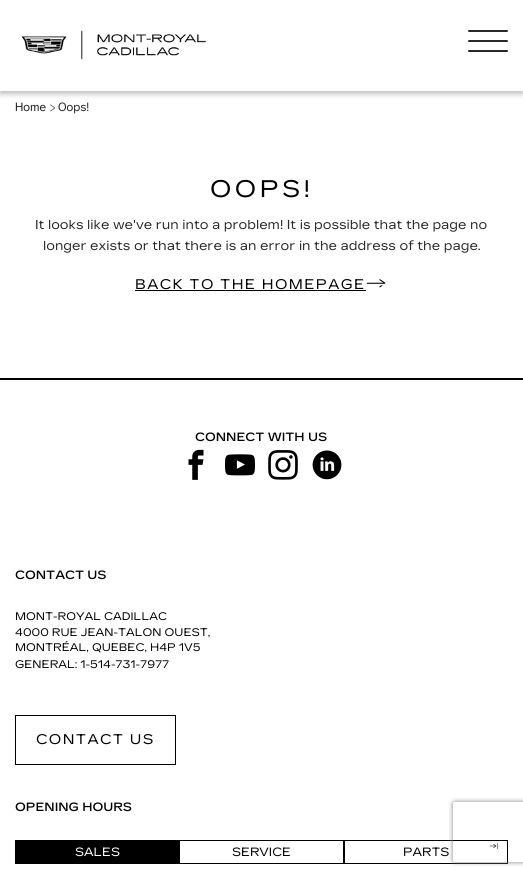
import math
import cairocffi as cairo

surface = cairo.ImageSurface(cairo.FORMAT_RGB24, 523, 876)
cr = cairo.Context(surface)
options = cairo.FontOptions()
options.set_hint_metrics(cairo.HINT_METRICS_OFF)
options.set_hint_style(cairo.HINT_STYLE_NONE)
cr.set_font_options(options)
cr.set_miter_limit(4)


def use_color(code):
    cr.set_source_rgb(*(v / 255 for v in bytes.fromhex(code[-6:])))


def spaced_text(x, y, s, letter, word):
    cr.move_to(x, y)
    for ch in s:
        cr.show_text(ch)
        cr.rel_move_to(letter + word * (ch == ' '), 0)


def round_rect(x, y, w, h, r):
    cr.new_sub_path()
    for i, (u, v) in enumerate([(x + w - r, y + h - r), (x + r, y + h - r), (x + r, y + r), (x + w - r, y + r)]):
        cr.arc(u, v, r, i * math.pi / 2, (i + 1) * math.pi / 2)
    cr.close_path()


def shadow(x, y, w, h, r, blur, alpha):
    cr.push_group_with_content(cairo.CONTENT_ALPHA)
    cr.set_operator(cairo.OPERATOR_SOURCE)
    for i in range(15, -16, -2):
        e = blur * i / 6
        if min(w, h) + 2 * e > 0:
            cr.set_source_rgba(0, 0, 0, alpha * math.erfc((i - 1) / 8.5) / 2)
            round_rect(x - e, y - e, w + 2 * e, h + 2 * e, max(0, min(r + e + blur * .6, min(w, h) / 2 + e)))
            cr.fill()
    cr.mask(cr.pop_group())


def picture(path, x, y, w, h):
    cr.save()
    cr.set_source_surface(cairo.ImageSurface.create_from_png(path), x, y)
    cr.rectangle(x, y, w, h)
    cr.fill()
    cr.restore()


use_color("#ffffff")
cr.paint()
use_color("#000000")
shadow(0, 3, 523, 91, 0, 3, 0.15)
shadow(0, 3, 523, 90, 0, 3, 0.15)
use_color("#ffffff")
cr.rectangle(0, 0, 523, 91)
cr.fill()
picture("img1.png", 21, 30, 185, 30)
use_color("#282828")
round_rect(468, 30, 40, 2, 1)
cr.fill()
round_rect(468, 40, 40, 2, 1)
cr.fill()
round_rect(468, 50, 40, 2, 1)
cr.fill()
cr.select_font_face("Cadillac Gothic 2")
cr.set_font_size(12)
cr.move_to(15, 111)
cr.show_text("Home")
picture("img2.png", 50, 104, 5, 8)
cr.move_to(58, 111)
cr.show_text("Oops!")
cr.select_font_face("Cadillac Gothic")
cr.set_font_size(24)
use_color("#000000")
spaced_text(210, 197, "OOPS!", 3.5, 0)
cr.set_font_size(13)
use_color("#282828")
cr.move_to(35, 229)
cr.show_text("It looks like we've run into a problem! It is possible that the page no")
cr.move_to(43, 250)
cr.show_text("longer exists or that there is an error in the address of the page.")
cr.set_font_size(14)
use_color("#000000")
spaced_text(135, 289, "BACK TO THE HOMEPAGE", 1.4, 0)
cr.rectangle(135, 290, 231, 1)
cr.fill()
picture("img3.png", 366, 279, 20, 9)
cr.rectangle(0, 378, 523, 2)
cr.fill()
cr.select_font_face("Cadillac Gothic Medium")
cr.set_font_size(12)
cr.move_to(195, 441)
cr.show_text("CONNECT WITH US")
picture("img4.png", 188, 449, 16, 31)
picture("img5.png", 225, 454, 30, 22)
picture("img6.png", 268, 450, 30, 30)
picture("img7.png", 312, 450, 30, 30)
cr.move_to(15, 579)
cr.show_text("CONTACT US")
cr.select_font_face("Cadillac Gothic")
cr.set_font_size(11)
cr.move_to(15, 620)
cr.show_text("MONT-ROYAL CADILLAC")
cr.move_to(15, 636)
cr.show_text("4000 RUE JEAN-TALON OUEST,")
cr.move_to(15, 651)
cr.show_text("MONTRÉAL, QUEBEC, H4P 1V5")
cr.move_to(15, 668)
cr.show_text("GENERAL: 1-514-731-7977")
cr.rectangle(15.5, 715.5, 160, 49)
cr.set_line_width(1)
cr.stroke()
cr.set_font_size(14)
spaced_text(36, 744, "CONTACT US", 1.4, 0)
cr.select_font_face("Cadillac Gothic Medium")
cr.set_font_size(12)
cr.move_to(15, 811)
cr.show_text("OPENING HOURS")
cr.rectangle(15, 840, 164, 24)
cr.fill()
cr.select_font_face("Cadillac Gothic")
use_color("#ffffff")
cr.move_to(75, 856)
cr.show_text("SALES")
cr.rectangle(179.5, 840.5, 164, 23)
use_color("#000000")
cr.stroke()
cr.move_to(232, 856)
cr.show_text("SERVICE")
cr.rectangle(344.5, 840.5, 163, 23)
cr.stroke()
cr.move_to(403, 856)
cr.show_text("PARTS")
cr.save()
cr.set_fill_rule(cairo.FILL_RULE_EVEN_ODD)
cr.new_path()
cr.move_to(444, 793)
cr.line_to(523, 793)
cr.line_to(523, 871)
cr.line_to(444, 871)
cr.close_path()
cr.move_to(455, 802)
cr.line_to(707, 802)
cr.curve_to(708, 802, 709, 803, 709, 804)
cr.line_to(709, 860)
cr.curve_to(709, 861, 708, 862, 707, 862)
cr.line_to(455, 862)
cr.curve_to(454, 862, 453, 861, 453, 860)
cr.line_to(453, 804)
cr.curve_to(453, 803, 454, 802, 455, 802)
cr.close_path()
cr.clip()
use_color("#808080")
shadow(453, 802, 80, 60, 2, 2.5, 1)
cr.restore()
picture("img8.png", 489, 843, 10, 6)
surface.write_to_png("result.png")
